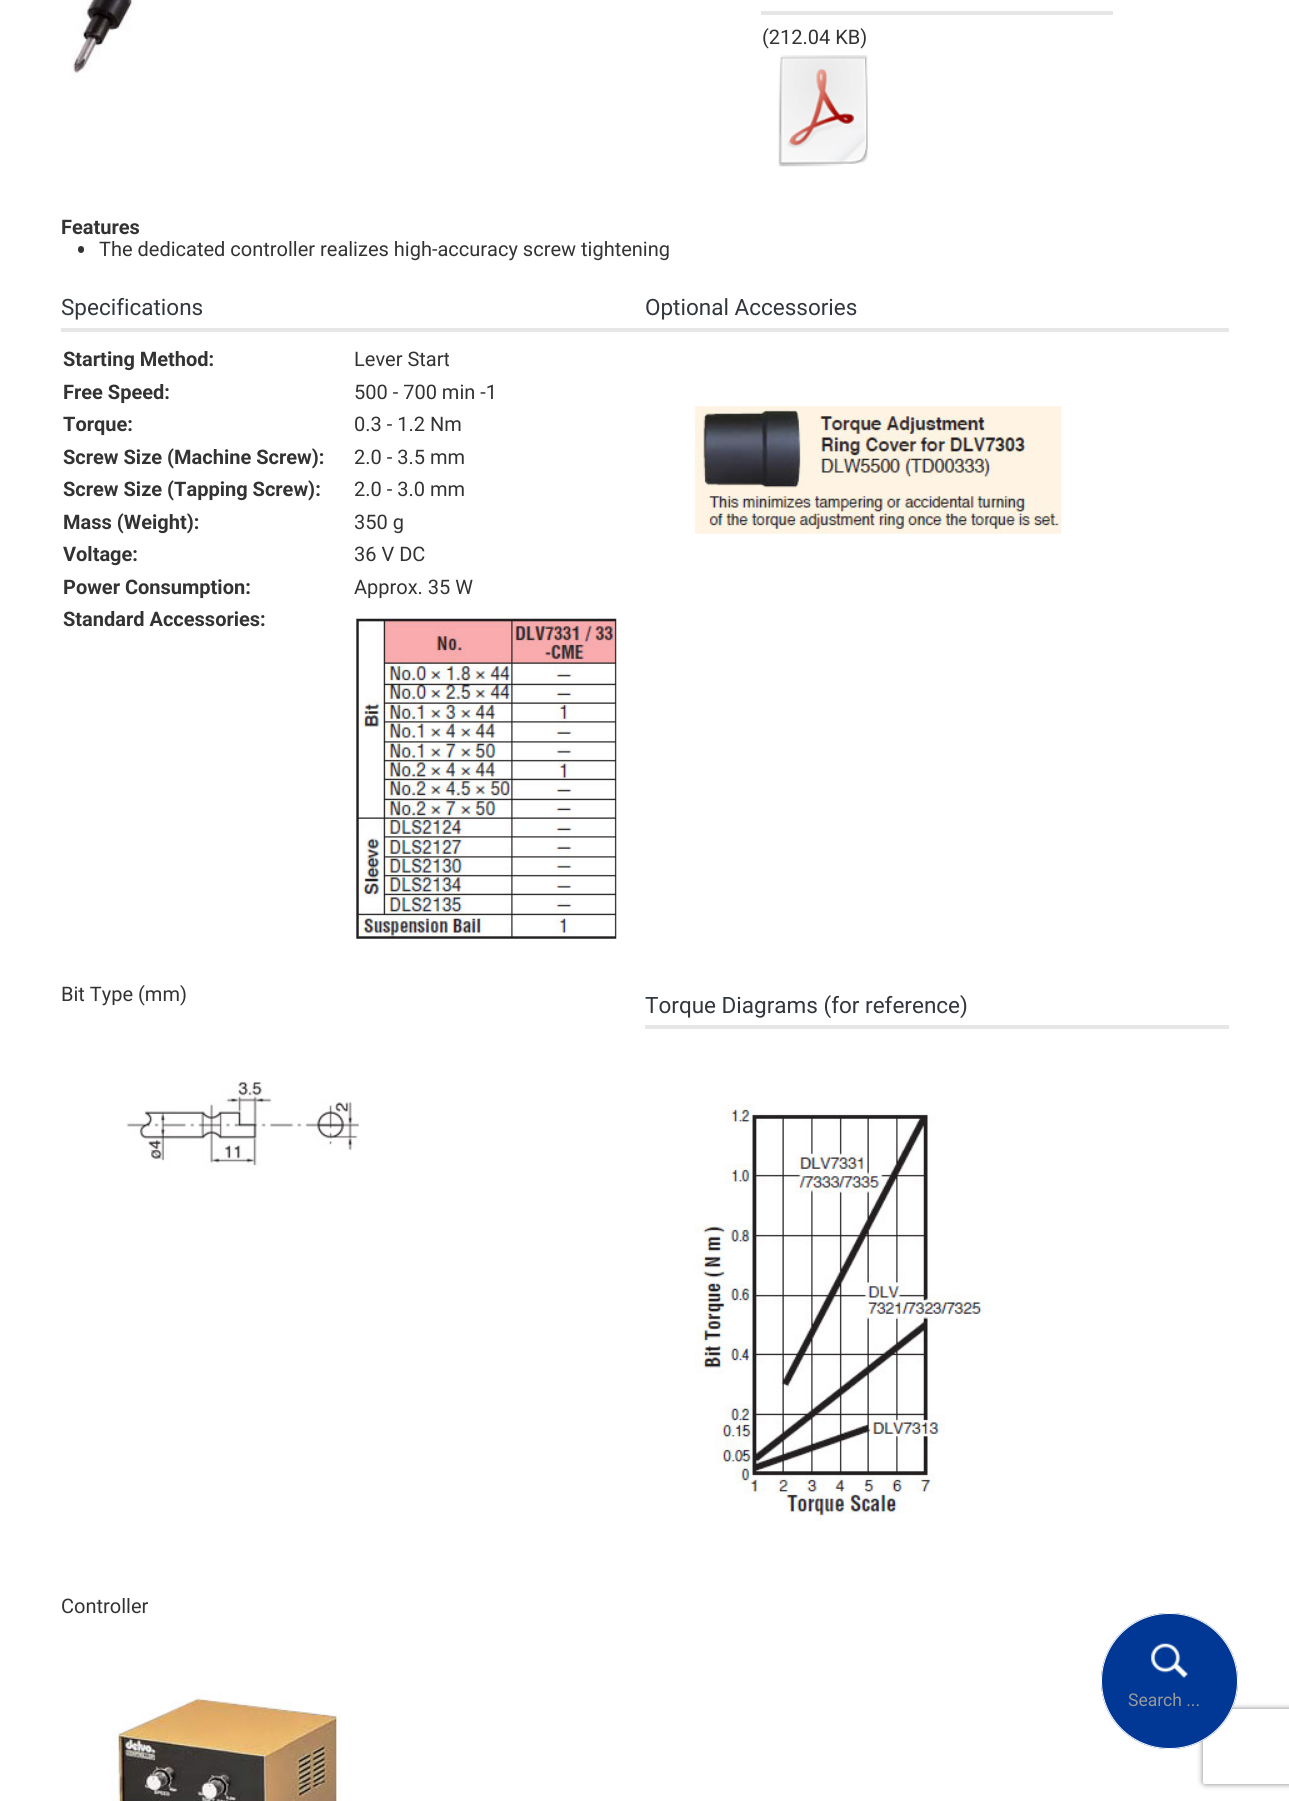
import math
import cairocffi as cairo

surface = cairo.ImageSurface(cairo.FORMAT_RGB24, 1289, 1801)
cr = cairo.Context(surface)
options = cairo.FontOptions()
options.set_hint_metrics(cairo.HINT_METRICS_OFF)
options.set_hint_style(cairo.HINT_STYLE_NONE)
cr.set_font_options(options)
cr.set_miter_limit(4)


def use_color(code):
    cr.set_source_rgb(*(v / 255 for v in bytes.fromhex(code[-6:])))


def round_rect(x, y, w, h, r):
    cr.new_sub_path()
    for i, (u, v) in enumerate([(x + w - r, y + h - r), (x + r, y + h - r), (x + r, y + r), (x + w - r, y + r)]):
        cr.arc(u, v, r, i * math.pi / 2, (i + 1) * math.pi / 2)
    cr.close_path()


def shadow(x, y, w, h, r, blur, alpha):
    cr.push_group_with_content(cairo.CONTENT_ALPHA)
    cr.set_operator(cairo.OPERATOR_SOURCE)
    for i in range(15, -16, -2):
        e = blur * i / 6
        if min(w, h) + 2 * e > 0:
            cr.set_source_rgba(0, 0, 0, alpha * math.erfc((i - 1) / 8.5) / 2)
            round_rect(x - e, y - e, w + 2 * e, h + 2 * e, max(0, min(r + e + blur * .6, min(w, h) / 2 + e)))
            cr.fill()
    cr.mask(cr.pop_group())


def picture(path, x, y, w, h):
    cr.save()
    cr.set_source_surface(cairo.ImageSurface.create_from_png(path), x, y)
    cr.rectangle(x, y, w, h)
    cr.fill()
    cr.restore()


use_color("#ffffff")
cr.paint()
picture("img1.png", 71, 0, 64, 79)
use_color("#e6e6e6")
cr.rectangle(761, 11, 352, 4)
cr.fill()
cr.select_font_face("Roboto")
cr.set_font_size(20)
use_color("#333333")
cr.move_to(762, 44)
cr.show_text("(212.04 KB)")
picture("img2.png", 778, 55, 90, 112)
cr.select_font_face("Roboto", cairo.FONT_SLANT_NORMAL, cairo.FONT_WEIGHT_BOLD)
cr.move_to(61, 234)
cr.show_text("Features")
round_rect(78, 246, 6, 7, 3)
cr.fill()
cr.select_font_face("Roboto")
cr.move_to(99, 256)
cr.show_text("The dedicated controller realizes high-accuracy screw tightening")
use_color("#e6e6e6")
cr.rectangle(61, 328, 1168, 4)
cr.fill()
cr.set_font_size(22.5)
use_color("#32373d")
cr.move_to(61, 315)
cr.show_text("Specifications")
cr.select_font_face("Roboto", cairo.FONT_SLANT_NORMAL, cairo.FONT_WEIGHT_BOLD)
cr.set_font_size(20)
use_color("#333333")
cr.move_to(63, 366)
cr.show_text("Starting Method:")
cr.select_font_face("Roboto")
cr.move_to(354, 366)
cr.show_text("Lever Start")
cr.select_font_face("Roboto", cairo.FONT_SLANT_NORMAL, cairo.FONT_WEIGHT_BOLD)
cr.move_to(63, 399)
cr.show_text("Free Speed:")
cr.select_font_face("Roboto")
cr.move_to(354, 399)
cr.show_text("500 - 700 min -1")
cr.select_font_face("Roboto", cairo.FONT_SLANT_NORMAL, cairo.FONT_WEIGHT_BOLD)
cr.move_to(63, 431)
cr.show_text("Torque:")
cr.select_font_face("Roboto")
cr.move_to(354, 431)
cr.show_text("0.3 - 1.2 Nm")
cr.select_font_face("Roboto", cairo.FONT_SLANT_NORMAL, cairo.FONT_WEIGHT_BOLD)
cr.move_to(63, 464)
cr.show_text("Screw Size (Machine Screw):")
cr.select_font_face("Roboto")
cr.move_to(354, 464)
cr.show_text("2.0 - 3.5 mm")
cr.select_font_face("Roboto", cairo.FONT_SLANT_NORMAL, cairo.FONT_WEIGHT_BOLD)
cr.move_to(63, 496)
cr.show_text("Screw Size (Tapping Screw):")
cr.select_font_face("Roboto")
cr.move_to(354, 496)
cr.show_text("2.0 - 3.0 mm")
cr.select_font_face("Roboto", cairo.FONT_SLANT_NORMAL, cairo.FONT_WEIGHT_BOLD)
cr.move_to(63, 529)
cr.show_text("Mass (Weight):")
cr.select_font_face("Roboto")
cr.move_to(354, 529)
cr.show_text("350 g")
cr.select_font_face("Roboto", cairo.FONT_SLANT_NORMAL, cairo.FONT_WEIGHT_BOLD)
cr.move_to(63, 561)
cr.show_text("Voltage:")
cr.select_font_face("Roboto")
cr.move_to(354, 561)
cr.show_text("36 V DC")
cr.select_font_face("Roboto", cairo.FONT_SLANT_NORMAL, cairo.FONT_WEIGHT_BOLD)
cr.move_to(63, 594)
cr.show_text("Power Consumption:")
cr.select_font_face("Roboto")
cr.move_to(354, 594)
cr.show_text("Approx. 35 W")
cr.select_font_face("Roboto", cairo.FONT_SLANT_NORMAL, cairo.FONT_WEIGHT_BOLD)
cr.move_to(63, 626)
cr.show_text("Standard Accessories:")
picture("img3.png", 355, 617, 262, 322)
cr.select_font_face("Roboto")
cr.set_font_size(22.5)
use_color("#32373d")
cr.move_to(645, 315)
cr.show_text("Optional Accessories")
picture("img4.png", 695, 406, 367, 128)
cr.set_font_size(20)
use_color("#333333")
cr.move_to(61, 1001)
cr.show_text("Bit Type (mm)")
picture("img5.png", 126, 1080, 234, 89)
use_color("#e6e6e6")
cr.rectangle(645, 1025, 584, 4)
cr.fill()
cr.set_font_size(22.5)
use_color("#32373d")
cr.move_to(645, 1013)
cr.show_text("Torque Diagrams (for reference)")
picture("img6.png", 695, 1104, 290, 417)
cr.set_font_size(20)
use_color("#333333")
cr.move_to(61, 1613)
cr.show_text("Controller")
picture("img7.png", 111, 1693, 230, 108)
cr.save()
cr.set_fill_rule(cairo.FILL_RULE_EVEN_ODD)
cr.new_path()
cr.move_to(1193, 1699)
cr.line_to(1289, 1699)
cr.line_to(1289, 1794)
cr.line_to(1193, 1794)
cr.close_path()
cr.move_to(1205.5, 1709)
cr.line_to(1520.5, 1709)
cr.curve_to(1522, 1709, 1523, 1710, 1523, 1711.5)
cr.line_to(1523, 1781.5)
cr.curve_to(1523, 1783, 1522, 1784, 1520.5, 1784)
cr.line_to(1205.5, 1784)
cr.curve_to(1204, 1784, 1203, 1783, 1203, 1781.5)
cr.line_to(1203, 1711.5)
cr.curve_to(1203, 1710, 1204, 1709, 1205.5, 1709)
cr.close_path()
cr.clip()
use_color("#808080")
shadow(1203, 1709, 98, 75, 2.5, 3, 1)
cr.restore()
use_color("#013895")
round_rect(1101, 1613, 137, 136, 68)
cr.fill()
picture("img8.png", 1151, 1643, 37, 35)
use_color("#01348a")
cr.new_path()
cr.move_to(1169, 1615)
cr.curve_to(1206, 1615, 1236, 1645, 1236, 1682)
cr.curve_to(1236, 1616, 1153, 1590, 1116, 1641)
cr.curve_to(1128, 1625, 1147, 1615, 1169, 1615)
cr.close_path()
cr.fill()
round_rect(1101.5, 1613.5, 136, 135, 67.5)
use_color("#ffffff")
cr.set_line_width(1)
cr.stroke()
cr.set_font_size(17.5)
use_color("#999999")
cr.move_to(1128, 1706)
cr.show_text("Search ...")
surface.write_to_png("result.png")
